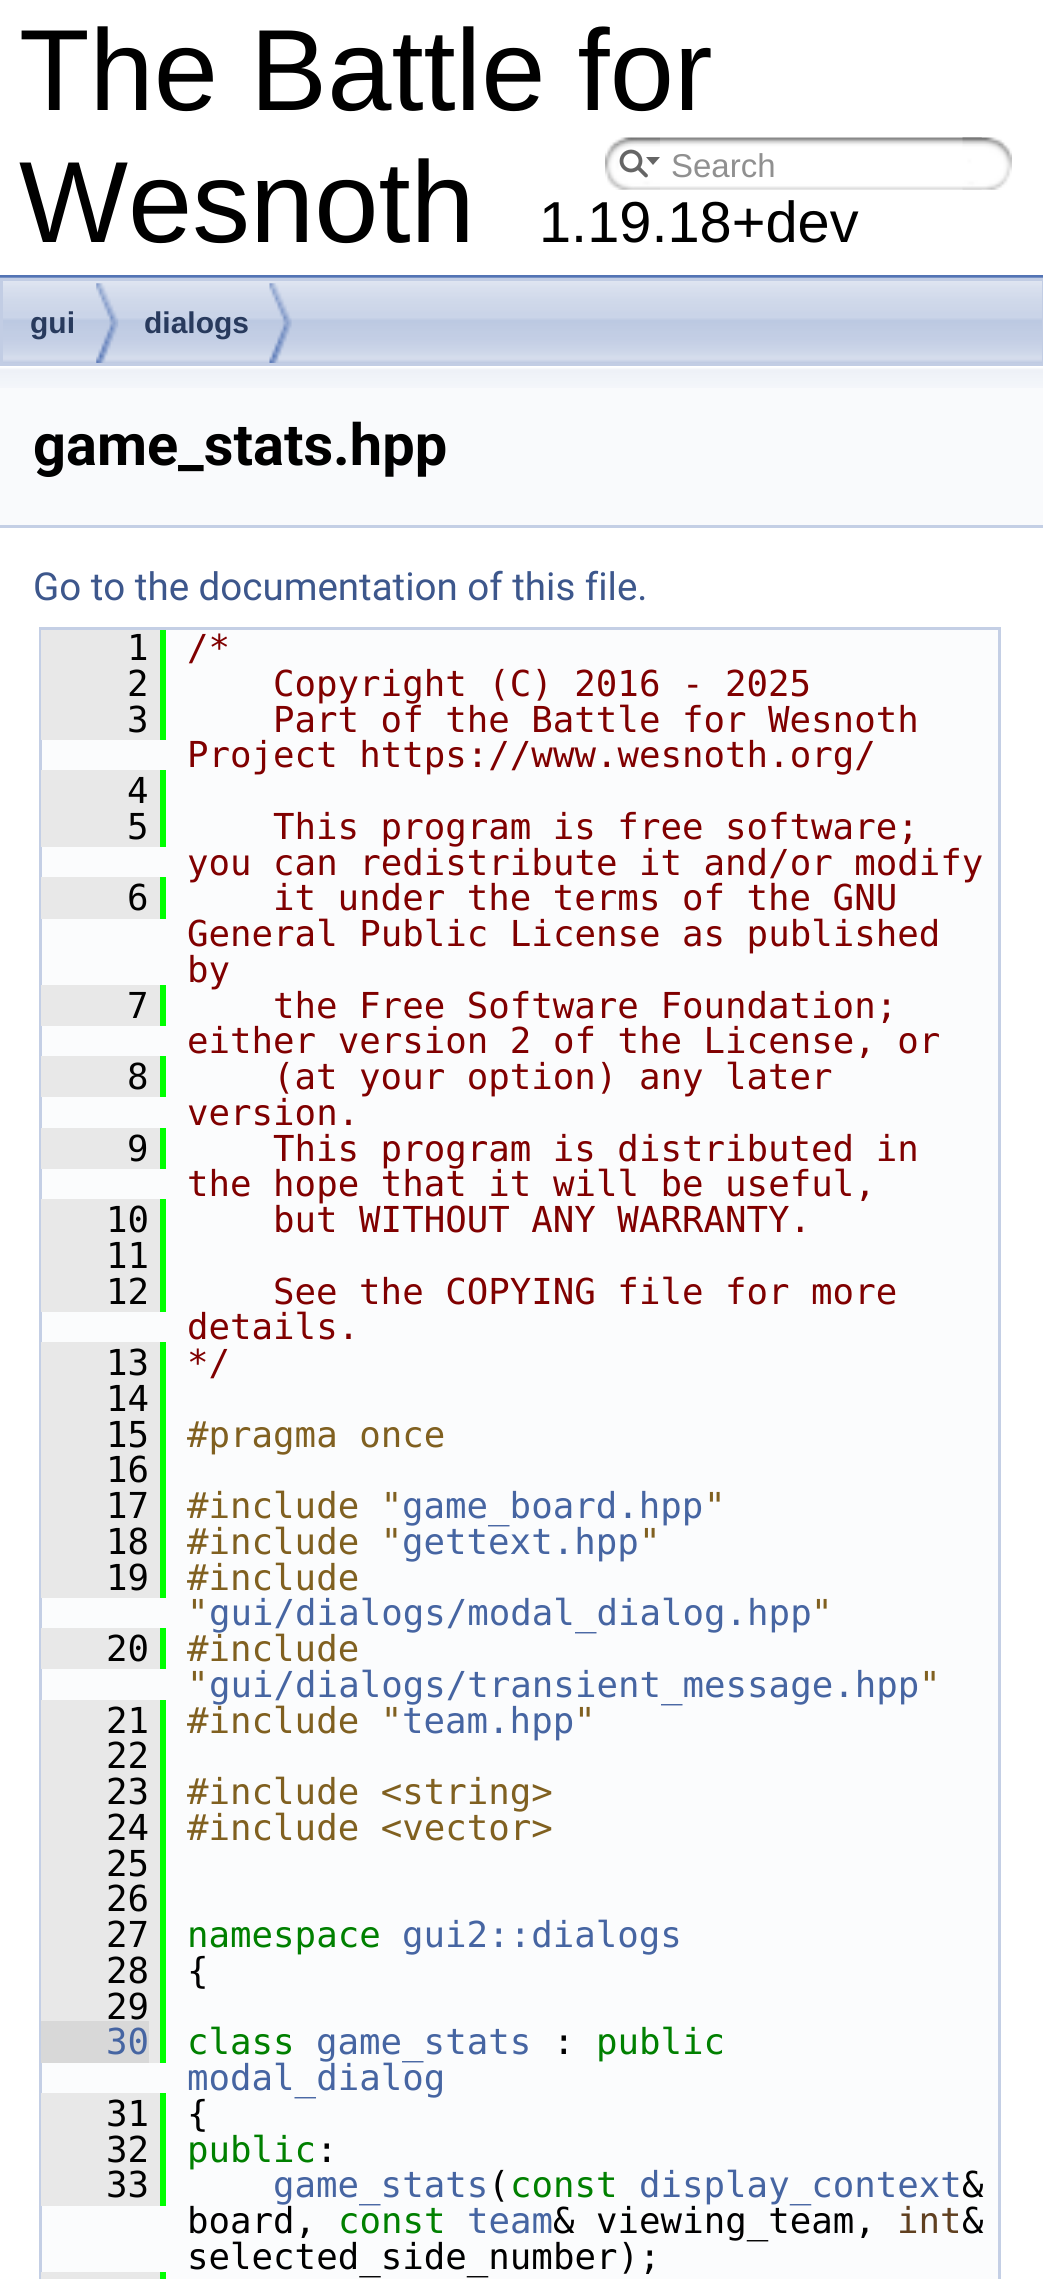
import math
import cairocffi as cairo

surface = cairo.ImageSurface(cairo.FORMAT_RGB24, 1043, 2279)
cr = cairo.Context(surface)
options = cairo.FontOptions()
options.set_hint_metrics(cairo.HINT_METRICS_OFF)
options.set_hint_style(cairo.HINT_STYLE_NONE)
cr.set_font_options(options)
cr.set_miter_limit(4)


def use_color(code):
    cr.set_source_rgb(*(v / 255 for v in bytes.fromhex(code[-6:])))


def picture(path, x, y, w, h):
    cr.save()
    cr.set_source_surface(cairo.ImageSurface.create_from_png(path), x, y)
    cr.rectangle(x, y, w, h)
    cr.fill()
    cr.restore()


use_color("#ffffff")
cr.paint()
use_color("#5373b4")
cr.rectangle(0, 275, 1043, 3)
cr.fill()
cr.select_font_face("Liberation Sans")
cr.set_font_size(115.5)
use_color("#000000")
cr.move_to(19, 110)
cr.show_text("The Battle for")
cr.move_to(19, 242)
cr.show_text("Wesnoth")
cr.set_font_size(57.75)
cr.move_to(539, 242)
cr.show_text("1.19.18+dev")
picture("img1.png", 605, 137, 55, 53)
cr.arc(631, 161, 9.5, 0, 2 * math.pi)
use_color("#656565")
cr.set_line_width(3.8)
cr.stroke()
cr.new_path()
cr.move_to(646, 157)
cr.line_to(653, 165)
cr.line_to(660, 157)
cr.close_path()
cr.fill()
cr.new_path()
cr.move_to(638.5, 168)
cr.line_to(646, 175.5)
cr.set_line_cap(cairo.LINE_CAP_ROUND)
cr.stroke()
picture("img2.png", 660, 137, 322, 53)
cr.set_font_size(33)
use_color("#909090")
cr.move_to(671, 177)
cr.show_text("Search")
picture("img3.png", 962, 137, 50, 53)
picture("img4.png", 0, 277, 1043, 86)
cr.rectangle(1.5, 279.5, 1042, 85)
use_color("#c2cde4")
cr.set_line_width(3)
cr.set_line_cap(cairo.LINE_CAP_BUTT)
cr.stroke()
picture("img5.png", 96, 283, 23, 80)
cr.select_font_face("Liberation Sans", cairo.FONT_SLANT_NORMAL, cairo.FONT_WEIGHT_BOLD)
cr.set_font_size(30)
use_color("#283a5d")
cr.move_to(30, 333)
cr.show_text("gui")
picture("img6.png", 269, 283, 23, 80)
cr.move_to(144, 333)
cr.show_text("dialogs")
use_color("#f9fafc")
cr.rectangle(0, 388, 1043, 137)
cr.fill()
picture("img7.png", 0, 366, 1043, 22)
use_color("#c4cfe5")
cr.rectangle(0, 525, 1043, 3)
cr.fill()
cr.select_font_face("Roboto", cairo.FONT_SLANT_NORMAL, cairo.FONT_WEIGHT_BOLD)
cr.set_font_size(57.75)
use_color("#000000")
cr.move_to(33, 465)
cr.show_text("game_stats.hpp")
cr.select_font_face("Roboto")
cr.set_font_size(38.5)
use_color("#3d578c")
cr.move_to(33, 600)
cr.show_text("Go to the documentation of this file.")
use_color("#fbfcfd")
cr.rectangle(40.5, 628.5, 959, 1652)
cr.fill_preserve()
use_color("#c4cfe5")
cr.stroke()
use_color("#e8e8e8")
cr.rectangle(41, 630, 119, 110)
cr.fill()
cr.select_font_face("DejaVu Sans Mono")
cr.set_font_size(35.75)
use_color("#000000")
cr.move_to(127, 660)
cr.show_text("1")
use_color("#00ff00")
cr.rectangle(160, 630, 6, 110)
cr.fill()
use_color("#800000")
cr.move_to(187, 660)
cr.show_text("/*")
use_color("#000000")
cr.move_to(127, 696)
cr.show_text("2")
use_color("#800000")
cr.move_to(273, 696)
cr.show_text("Copyright (C) 2016 - 2025")
use_color("#000000")
cr.move_to(127, 732)
cr.show_text("3")
use_color("#800000")
cr.move_to(273, 732)
cr.show_text("Part of the Battle for Wesnoth")
cr.move_to(187, 767)
cr.show_text("Project https://www.wesnoth.org/")
use_color("#e8e8e8")
cr.rectangle(41, 770, 119, 77)
cr.fill()
use_color("#000000")
cr.move_to(127, 803)
cr.show_text("4")
use_color("#00ff00")
cr.rectangle(160, 770, 6, 77)
cr.fill()
use_color("#000000")
cr.move_to(127, 839)
cr.show_text("5")
use_color("#800000")
cr.move_to(273, 839)
cr.show_text("This program is free software;")
cr.move_to(187, 875)
cr.show_text("you can redistribute it and/or modify")
use_color("#e8e8e8")
cr.rectangle(41, 877, 119, 42)
cr.fill()
use_color("#000000")
cr.move_to(127, 910)
cr.show_text("6")
use_color("#00ff00")
cr.rectangle(160, 877, 6, 42)
cr.fill()
use_color("#800000")
cr.move_to(273, 910)
cr.show_text("it under the terms of the GNU")
cr.move_to(187, 946)
cr.show_text("General Public License as published")
cr.move_to(187, 982)
cr.show_text("by")
use_color("#e8e8e8")
cr.rectangle(41, 985, 119, 41)
cr.fill()
use_color("#000000")
cr.move_to(127, 1018)
cr.show_text("7")
use_color("#00ff00")
cr.rectangle(160, 985, 6, 41)
cr.fill()
use_color("#800000")
cr.move_to(273, 1018)
cr.show_text("the Free Software Foundation;")
cr.move_to(187, 1053)
cr.show_text("either version 2 of the License, or")
use_color("#e8e8e8")
cr.rectangle(41, 1056, 119, 41)
cr.fill()
use_color("#000000")
cr.move_to(127, 1089)
cr.show_text("8")
use_color("#00ff00")
cr.rectangle(160, 1056, 6, 41)
cr.fill()
use_color("#800000")
cr.move_to(273, 1089)
cr.show_text("(at your option) any later")
cr.move_to(187, 1125)
cr.show_text("version.")
use_color("#e8e8e8")
cr.rectangle(41, 1128, 119, 41)
cr.fill()
use_color("#000000")
cr.move_to(127, 1161)
cr.show_text("9")
use_color("#00ff00")
cr.rectangle(160, 1128, 6, 41)
cr.fill()
use_color("#800000")
cr.move_to(273, 1161)
cr.show_text("This program is distributed in")
cr.move_to(187, 1196)
cr.show_text("the hope that it will be useful,")
use_color("#e8e8e8")
cr.rectangle(41, 1199, 119, 113)
cr.fill()
use_color("#000000")
cr.move_to(106, 1232)
cr.show_text("10")
use_color("#00ff00")
cr.rectangle(160, 1199, 6, 113)
cr.fill()
use_color("#800000")
cr.move_to(273, 1232)
cr.show_text("but WITHOUT ANY WARRANTY.")
use_color("#000000")
cr.move_to(106, 1268)
cr.show_text("11")
cr.move_to(106, 1304)
cr.show_text("12")
use_color("#800000")
cr.move_to(273, 1304)
cr.show_text("See the COPYING file for more")
cr.move_to(187, 1339)
cr.show_text("details.")
use_color("#e8e8e8")
cr.rectangle(41, 1342, 119, 256)
cr.fill()
use_color("#000000")
cr.move_to(106, 1375)
cr.show_text("13")
use_color("#00ff00")
cr.rectangle(160, 1342, 6, 256)
cr.fill()
use_color("#800000")
cr.move_to(187, 1375)
cr.show_text("*/")
use_color("#000000")
cr.move_to(106, 1411)
cr.show_text("14")
cr.move_to(106, 1447)
cr.show_text("15")
use_color("#806020")
cr.move_to(187, 1447)
cr.show_text("#pragma once")
use_color("#000000")
cr.move_to(106, 1482)
cr.show_text("16")
cr.move_to(106, 1518)
cr.show_text("17")
use_color("#806020")
cr.move_to(187, 1518)
cr.show_text("#include \"")
use_color("#4665a2")
cr.move_to(402, 1518)
cr.show_text("game_board.hpp")
use_color("#806020")
cr.move_to(704, 1518)
cr.show_text("\"")
use_color("#000000")
cr.move_to(106, 1554)
cr.show_text("18")
use_color("#806020")
cr.move_to(187, 1554)
cr.show_text("#include \"")
use_color("#4665a2")
cr.move_to(402, 1554)
cr.show_text("gettext.hpp")
use_color("#806020")
cr.move_to(639, 1554)
cr.show_text("\"")
use_color("#000000")
cr.move_to(106, 1590)
cr.show_text("19")
use_color("#806020")
cr.move_to(187, 1590)
cr.show_text("#include")
cr.move_to(187, 1625)
cr.show_text("\"")
use_color("#4665a2")
cr.move_to(209, 1625)
cr.show_text("gui/dialogs/modal_dialog.hpp")
use_color("#806020")
cr.move_to(811, 1625)
cr.show_text("\"")
use_color("#e8e8e8")
cr.rectangle(41, 1628, 119, 41)
cr.fill()
use_color("#000000")
cr.move_to(106, 1661)
cr.show_text("20")
use_color("#00ff00")
cr.rectangle(160, 1628, 6, 41)
cr.fill()
use_color("#806020")
cr.move_to(187, 1661)
cr.show_text("#include")
cr.move_to(187, 1697)
cr.show_text("\"")
use_color("#4665a2")
cr.move_to(209, 1697)
cr.show_text("gui/dialogs/transient_message.hpp")
use_color("#806020")
cr.move_to(919, 1697)
cr.show_text("\"")
use_color("#e8e8e8")
cr.rectangle(41, 1700, 119, 321)
cr.fill()
use_color("#000000")
cr.move_to(106, 1733)
cr.show_text("21")
use_color("#00ff00")
cr.rectangle(160, 1700, 6, 363)
cr.fill()
use_color("#806020")
cr.move_to(187, 1733)
cr.show_text("#include \"")
use_color("#4665a2")
cr.move_to(402, 1733)
cr.show_text("team.hpp")
use_color("#806020")
cr.move_to(574, 1733)
cr.show_text("\"")
use_color("#000000")
cr.move_to(106, 1768)
cr.show_text("22")
cr.move_to(106, 1804)
cr.show_text("23")
use_color("#806020")
cr.move_to(187, 1804)
cr.show_text("#include <string>")
use_color("#000000")
cr.move_to(106, 1840)
cr.show_text("24")
use_color("#806020")
cr.move_to(187, 1840)
cr.show_text("#include <vector>")
use_color("#000000")
cr.move_to(106, 1876)
cr.show_text("25")
cr.move_to(106, 1911)
cr.show_text("26")
cr.move_to(106, 1947)
cr.show_text("27")
use_color("#008000")
cr.move_to(187, 1947)
cr.show_text("namespace")
use_color("#4665a2")
cr.move_to(402, 1947)
cr.show_text("gui2::dialogs")
use_color("#000000")
cr.move_to(106, 1983)
cr.show_text("28")
cr.move_to(187, 1983)
cr.show_text("{")
cr.move_to(106, 2019)
cr.show_text("29")
use_color("#d8d8d8")
cr.rectangle(41, 2021, 108, 42)
cr.fill()
use_color("#4665a2")
cr.move_to(106, 2054)
cr.show_text("30")
use_color("#e8e8e8")
cr.rectangle(149, 2021, 11, 42)
cr.fill()
use_color("#008000")
cr.move_to(187, 2054)
cr.show_text("class")
use_color("#4665a2")
cr.move_to(316, 2054)
cr.show_text("game_stats")
use_color("#000000")
cr.move_to(553, 2054)
cr.show_text(":")
use_color("#008000")
cr.move_to(596, 2054)
cr.show_text("public")
use_color("#4665a2")
cr.move_to(187, 2090)
cr.show_text("modal_dialog")
use_color("#e8e8e8")
cr.rectangle(41, 2093, 119, 113)
cr.fill()
use_color("#000000")
cr.move_to(106, 2126)
cr.show_text("31")
use_color("#00ff00")
cr.rectangle(160, 2093, 6, 113)
cr.fill()
use_color("#000000")
cr.move_to(187, 2126)
cr.show_text("{")
cr.move_to(106, 2162)
cr.show_text("32")
use_color("#008000")
cr.move_to(187, 2162)
cr.show_text("public")
use_color("#000000")
cr.move_to(316, 2162)
cr.show_text(":")
use_color("#e8e8e8")
cr.rectangle(41, 2272, 124, 7)
cr.fill()
use_color("#00ff00")
cr.rectangle(160, 2272, 6, 7)
cr.fill()
use_color("#000000")
cr.move_to(106, 2197)
cr.show_text("33")
use_color("#4665a2")
cr.move_to(273, 2197)
cr.show_text("game_stats")
use_color("#000000")
cr.move_to(488, 2197)
cr.show_text("(")
use_color("#008000")
cr.move_to(510, 2197)
cr.show_text("const")
use_color("#4665a2")
cr.move_to(639, 2197)
cr.show_text("display_context")
use_color("#000000")
cr.move_to(962, 2197)
cr.show_text("&")
cr.move_to(187, 2233)
cr.show_text("board,")
use_color("#008000")
cr.move_to(338, 2233)
cr.show_text("const")
use_color("#4665a2")
cr.move_to(467, 2233)
cr.show_text("team")
use_color("#000000")
cr.move_to(553, 2233)
cr.show_text("& viewing_team,")
use_color("#604020")
cr.move_to(897, 2233)
cr.show_text("int")
use_color("#000000")
cr.move_to(962, 2233)
cr.show_text("&")
cr.move_to(187, 2269)
cr.show_text("selected_side_number);")
surface.write_to_png("result.png")
